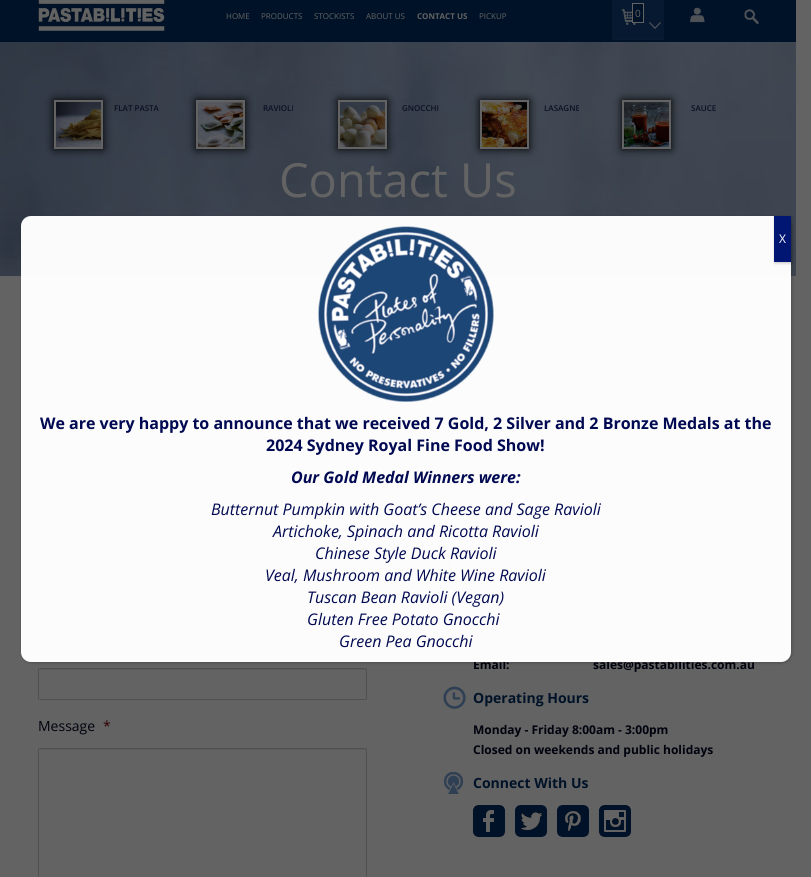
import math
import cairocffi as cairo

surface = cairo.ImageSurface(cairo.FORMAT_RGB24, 811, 877)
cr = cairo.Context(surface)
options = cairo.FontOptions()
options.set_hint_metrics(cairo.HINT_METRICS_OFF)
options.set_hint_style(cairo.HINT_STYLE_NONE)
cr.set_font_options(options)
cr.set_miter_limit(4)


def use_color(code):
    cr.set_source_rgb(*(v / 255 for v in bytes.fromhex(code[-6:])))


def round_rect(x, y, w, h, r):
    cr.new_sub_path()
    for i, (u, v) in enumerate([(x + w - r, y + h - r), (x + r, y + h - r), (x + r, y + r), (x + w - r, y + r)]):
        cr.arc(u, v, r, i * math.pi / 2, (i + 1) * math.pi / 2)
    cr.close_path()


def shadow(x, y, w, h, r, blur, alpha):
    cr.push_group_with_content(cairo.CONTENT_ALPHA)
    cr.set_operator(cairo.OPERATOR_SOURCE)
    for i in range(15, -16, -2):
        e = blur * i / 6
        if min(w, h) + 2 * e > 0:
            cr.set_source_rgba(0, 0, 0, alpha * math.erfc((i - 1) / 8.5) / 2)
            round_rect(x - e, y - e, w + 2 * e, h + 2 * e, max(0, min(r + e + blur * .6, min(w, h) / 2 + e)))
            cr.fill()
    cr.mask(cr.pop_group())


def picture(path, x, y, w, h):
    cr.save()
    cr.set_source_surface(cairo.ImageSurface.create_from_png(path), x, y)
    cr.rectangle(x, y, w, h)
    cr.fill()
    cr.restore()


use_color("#636363")
cr.paint()
use_color("#001227")
cr.rectangle(0, 0, 796, 42)
cr.fill()
picture("img1.png", 38, 0, 127, 31)
cr.select_font_face("Open Sans")
cr.set_font_size(8)
use_color("#636363")
cr.move_to(226, 19)
cr.show_text("HOME")
cr.move_to(261, 19)
cr.show_text("PRODUCTS")
cr.move_to(314, 19)
cr.show_text("STOCKISTS")
cr.move_to(366, 19)
cr.show_text("ABOUT US")
cr.select_font_face("Open Sans", cairo.FONT_SLANT_NORMAL, cairo.FONT_WEIGHT_BOLD)
cr.move_to(417, 19)
cr.show_text("CONTACT US")
cr.select_font_face("Open Sans")
cr.move_to(479, 19)
cr.show_text("PICKUP")
picture("img2.png", 612, 0, 52, 40)
use_color("#001227")
cr.rectangle(632.5, 3.5, 11, 19)
cr.fill_preserve()
use_color("#636363")
cr.set_line_width(1)
cr.stroke()
cr.set_font_size(10)
cr.move_to(635, 17)
cr.show_text("0")
picture("img3.png", 649, 22, 12, 7)
picture("img4.png", 690, 7, 15, 16)
picture("img5.png", 744, 9, 15, 15)
picture("img11.png", 0, 42, 796, 234)
use_color("#000000")
shadow(54, 100, 49, 49, 0, 4.5, 1)
cr.rectangle(55, 101, 47, 47)
use_color("#636363")
cr.set_line_width(2)
cr.stroke()
picture("img6.png", 56, 102, 45, 45)
cr.select_font_face("Open Sans SemiBold")
cr.set_font_size(8)
use_color("#0b0f23")
cr.move_to(114, 111)
cr.show_text("FLAT PASTA")
use_color("#000000")
shadow(196, 100, 49, 49, 0, 4.5, 1)
cr.rectangle(197, 101, 47, 47)
use_color("#636363")
cr.stroke()
picture("img7.png", 198, 102, 45, 45)
use_color("#0b0f23")
cr.move_to(263, 111)
cr.show_text("RAVIOLI")
use_color("#000000")
shadow(338, 100, 49, 49, 0, 4.5, 1)
cr.rectangle(339, 101, 47, 47)
use_color("#636363")
cr.stroke()
picture("img8.png", 340, 102, 45, 45)
use_color("#0b0f23")
cr.move_to(402, 111)
cr.show_text("GNOCCHI")
use_color("#000000")
shadow(480, 100, 49, 49, 0, 4.5, 1)
cr.rectangle(481, 101, 47, 47)
use_color("#636363")
cr.stroke()
picture("img9.png", 482, 102, 45, 45)
use_color("#0b0f23")
cr.move_to(544, 111)
cr.show_text("LASAGNE")
use_color("#000000")
shadow(622, 100, 49, 49, 0, 4.5, 1)
cr.rectangle(623, 101, 47, 47)
use_color("#636363")
cr.stroke()
picture("img10.png", 624, 102, 45, 45)
use_color("#0b0f23")
cr.move_to(691, 111)
cr.show_text("SAUCE")
cr.select_font_face("Open Sans")
cr.set_font_size(47)
use_color("#636363")
cr.move_to(279, 197)
cr.show_text("Contact Us")
use_color("#5c5c5c")
cr.new_path()
cr.move_to(40, 429)
cr.line_to(365, 429)
cr.curve_to(366, 429, 366, 429, 366, 430)
cr.curve_to(366, 429, 366, 428, 365, 428)
cr.line_to(40, 428)
cr.curve_to(39, 428, 39, 429, 39, 430)
cr.curve_to(39, 429, 39, 429, 40, 429)
cr.close_path()
cr.fill()
round_rect(38.5, 427.5, 328, 31, 1.5)
use_color("#505050")
cr.set_line_width(1)
cr.stroke()
use_color("#5c5c5c")
cr.new_path()
cr.move_to(40, 509)
cr.line_to(365, 509)
cr.curve_to(366, 509, 366, 509, 366, 510)
cr.curve_to(366, 509, 366, 508, 365, 508)
cr.line_to(40, 508)
cr.curve_to(39, 508, 39, 509, 39, 510)
cr.curve_to(39, 509, 39, 509, 40, 509)
cr.close_path()
cr.fill()
round_rect(38.5, 507.5, 328, 31, 1.5)
use_color("#505050")
cr.stroke()
use_color("#5c5c5c")
cr.new_path()
cr.move_to(40, 590)
cr.line_to(365, 590)
cr.curve_to(366, 590, 366, 590, 366, 591)
cr.curve_to(366, 590, 366, 589, 365, 589)
cr.line_to(40, 589)
cr.curve_to(39, 589, 39, 590, 39, 591)
cr.curve_to(39, 590, 39, 590, 40, 590)
cr.close_path()
cr.fill()
round_rect(38.5, 588.5, 328, 31, 1.5)
use_color("#505050")
cr.stroke()
use_color("#5c5c5c")
cr.new_path()
cr.move_to(40, 670)
cr.line_to(365, 670)
cr.curve_to(366, 670, 366, 670, 366, 671)
cr.curve_to(366, 670, 366, 669, 365, 669)
cr.line_to(40, 669)
cr.curve_to(39, 669, 39, 670, 39, 671)
cr.curve_to(39, 670, 39, 670, 40, 670)
cr.close_path()
cr.fill()
round_rect(38.5, 668.5, 328, 31, 1.5)
use_color("#505050")
cr.stroke()
cr.set_font_size(14)
use_color("#00020e")
cr.move_to(38, 731)
cr.show_text("Message")
use_color("#2f0000")
cr.move_to(103, 731)
cr.show_text("*")
use_color("#5c5c5c")
cr.new_path()
cr.move_to(40, 750)
cr.line_to(365, 750)
cr.curve_to(366, 750, 366, 750, 366, 751)
cr.curve_to(366, 750, 366, 749, 365, 749)
cr.line_to(40, 749)
cr.curve_to(39, 749, 39, 750, 39, 751)
cr.curve_to(39, 750, 39, 750, 40, 750)
cr.close_path()
cr.fill()
round_rect(38.5, 748.5, 328, 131, 1.5)
use_color("#505050")
cr.stroke()
picture("img12.png", 444, 475, 19, 24)
picture("img13.png", 446, 561, 16, 22)
cr.select_font_face("Open Sans", cairo.FONT_SLANT_NORMAL, cairo.FONT_WEIGHT_BOLD)
cr.set_font_size(12)
use_color("#00020e")
cr.move_to(473, 669)
cr.show_text("Email:")
cr.move_to(593, 669)
cr.show_text("sales@pastabilities.com.au")
picture("img14.png", 443, 686, 23, 23)
cr.set_font_size(14)
use_color("#001227")
cr.move_to(473, 703)
cr.show_text("Operating Hours")
cr.set_font_size(12)
use_color("#00020e")
cr.move_to(473, 734)
cr.show_text("Monday - Friday 8:00am - 3:00pm")
cr.move_to(473, 754)
cr.show_text("Closed on weekends and public holidays")
picture("img15.png", 444, 772, 19, 22)
cr.set_font_size(14)
use_color("#001227")
cr.move_to(473, 788)
cr.show_text("Connect With Us")
picture("img16.png", 473, 805, 32, 32)
picture("img17.png", 515, 805, 32, 32)
picture("img18.png", 557, 805, 32, 32)
picture("img19.png", 599, 805, 32, 32)
cr.save()
cr.set_fill_rule(cairo.FILL_RULE_EVEN_ODD)
cr.new_path()
cr.move_to(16, 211)
cr.line_to(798, 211)
cr.line_to(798, 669)
cr.line_to(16, 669)
cr.close_path()
cr.move_to(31, 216)
cr.line_to(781, 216)
cr.curve_to(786.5, 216, 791, 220.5, 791, 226)
cr.line_to(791, 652)
cr.curve_to(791, 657.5, 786.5, 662, 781, 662)
cr.line_to(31, 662)
cr.curve_to(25.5, 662, 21, 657.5, 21, 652)
cr.line_to(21, 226)
cr.curve_to(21, 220.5, 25.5, 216, 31, 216)
cr.close_path()
cr.clip()
use_color("#020202")
shadow(22, 217, 770, 446, 10, 1.5, 0.23)
cr.restore()
cr.set_source_rgba(1, 1, 1, 0.98)
round_rect(21, 216, 770, 446, 10)
cr.fill()
use_color("#020202")
shadow(775, 217, 17, 46, 0, 1.5, 0.23)
use_color("#001672")
cr.rectangle(774, 216, 17, 46)
cr.fill()
cr.select_font_face("Open Sans")
cr.set_font_size(12)
use_color("#ffffff")
cr.move_to(779, 243)
cr.show_text("X")
picture("img20.png", 318, 226, 176, 176)
cr.select_font_face("Open Sans", cairo.FONT_SLANT_NORMAL, cairo.FONT_WEIGHT_BOLD)
cr.set_font_size(16)
use_color("#000951")
cr.move_to(40, 429)
cr.show_text("We are very happy to announce that we received 7 Gold, 2 Silver and 2 Bronze Medals at the")
cr.move_to(266, 451)
cr.show_text("2024 Sydney Royal Fine Food Show!")
cr.select_font_face("Open Sans", cairo.FONT_SLANT_ITALIC, cairo.FONT_WEIGHT_BOLD)
cr.move_to(291, 483)
cr.show_text("Our Gold Medal Winners were:")
cr.select_font_face("Open Sans", cairo.FONT_SLANT_ITALIC)
cr.move_to(211, 515)
cr.show_text("Butternut Pumpkin with Goat’s Cheese and Sage Ravioli")
cr.move_to(273, 537)
cr.show_text("Artichoke, Spinach and Ricotta Ravioli")
cr.move_to(315, 559)
cr.show_text("Chinese Style Duck Ravioli")
cr.move_to(265, 581)
cr.show_text("Veal, Mushroom and White Wine Ravioli")
cr.move_to(307, 603)
cr.show_text("Tuscan Bean Ravioli (Vegan)")
cr.move_to(307, 625)
cr.show_text("Gluten Free Potato Gnocchi")
cr.move_to(339, 647)
cr.show_text("Green Pea Gnocchi")
surface.write_to_png("result.png")
